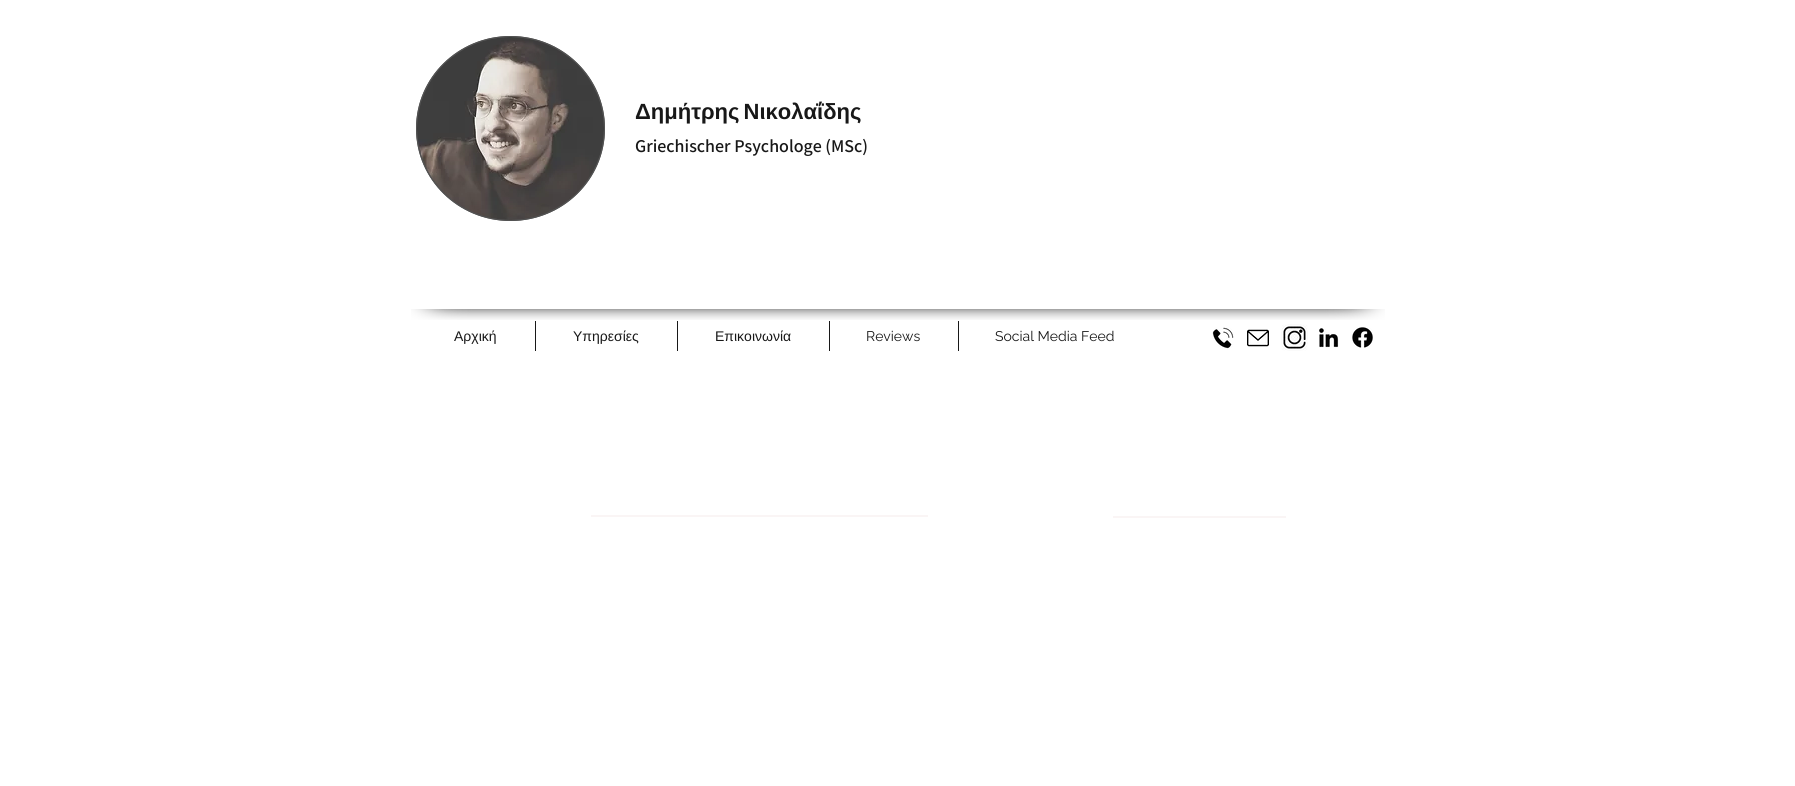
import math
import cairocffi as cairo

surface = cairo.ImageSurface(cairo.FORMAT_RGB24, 1795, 786)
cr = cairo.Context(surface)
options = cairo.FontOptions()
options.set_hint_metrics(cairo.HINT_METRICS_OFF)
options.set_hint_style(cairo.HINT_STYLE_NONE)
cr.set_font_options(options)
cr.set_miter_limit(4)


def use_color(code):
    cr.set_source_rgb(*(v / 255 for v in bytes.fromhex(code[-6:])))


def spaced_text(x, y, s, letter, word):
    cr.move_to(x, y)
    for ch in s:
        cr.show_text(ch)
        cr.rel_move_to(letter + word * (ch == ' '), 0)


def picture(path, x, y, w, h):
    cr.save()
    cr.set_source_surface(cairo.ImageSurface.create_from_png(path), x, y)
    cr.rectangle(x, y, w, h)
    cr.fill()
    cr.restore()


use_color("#ffffff")
cr.paint()
use_color("#525252")
cr.new_path()
cr.move_to(510.5, 36)
cr.curve_to(562.5, 36, 605, 77.5, 605, 128.5)
cr.curve_to(605, 179.5, 562.5, 221, 510.5, 221)
cr.curve_to(458.5, 221, 416, 179.5, 416, 128.5)
cr.curve_to(416, 77.5, 458.5, 36, 510.5, 36)
cr.close_path()
cr.fill()
cr.new_path()
cr.move_to(510.5, 36.5)
cr.curve_to(562.5, 36.5, 604.5, 77.5, 604.5, 128.5)
cr.curve_to(604.5, 179.5, 562.5, 220.5, 510.5, 220.5)
cr.curve_to(458.5, 220.5, 416.5, 179.5, 416.5, 128.5)
cr.curve_to(416.5, 77.5, 458.5, 36.5, 510.5, 36.5)
cr.close_path()
cr.set_line_width(1)
cr.stroke()
picture("img1.png", 417, 37, 187, 183)
cr.select_font_face("Liberation Sans", cairo.FONT_SLANT_NORMAL, cairo.FONT_WEIGHT_BOLD)
cr.set_font_size(22)
use_color("#181818")
spaced_text(635, 119, "Δημήτρης Νικολαΐδης", 0, -2)
cr.select_font_face("Assistant SemiBold")
cr.set_font_size(18)
cr.move_to(635, 152)
cr.show_text("Griechischer Psychologe (MSc)")
picture("img2.png", 411, 309, 97, 11)
picture("img3.png", 508, 309, 780, 11)
picture("img4.png", 1288, 309, 97, 11)
cr.select_font_face("Liberation Sans")
cr.set_font_size(14)
cr.move_to(454, 341)
cr.show_text("Αρχική")
cr.rectangle(535, 321, 1, 30)
cr.fill()
cr.move_to(573, 341)
cr.show_text("Υπηρεσίες")
cr.rectangle(677, 321, 1, 30)
cr.fill()
cr.move_to(715, 341)
cr.show_text("Επικοινωνία")
cr.rectangle(829, 321, 1, 30)
cr.fill()
cr.select_font_face("Raleway")
cr.move_to(866, 341)
cr.show_text("Reviews")
cr.rectangle(958, 321, 1, 30)
cr.fill()
cr.move_to(995, 341)
cr.show_text("Social Media Feed")
picture("img5.png", 1212, 327, 22, 22)
picture("img6.png", 1247, 329, 22, 18)
picture("img7.png", 1281, 324, 27, 27)
picture("img8.png", 1319, 328, 20, 20)
picture("img9.png", 1352, 327, 21, 21)
use_color("#faf5f5")
cr.rectangle(591, 515, 337, 2)
cr.fill()
cr.rectangle(1113, 516, 173, 2)
cr.fill()
surface.write_to_png("result.png")
